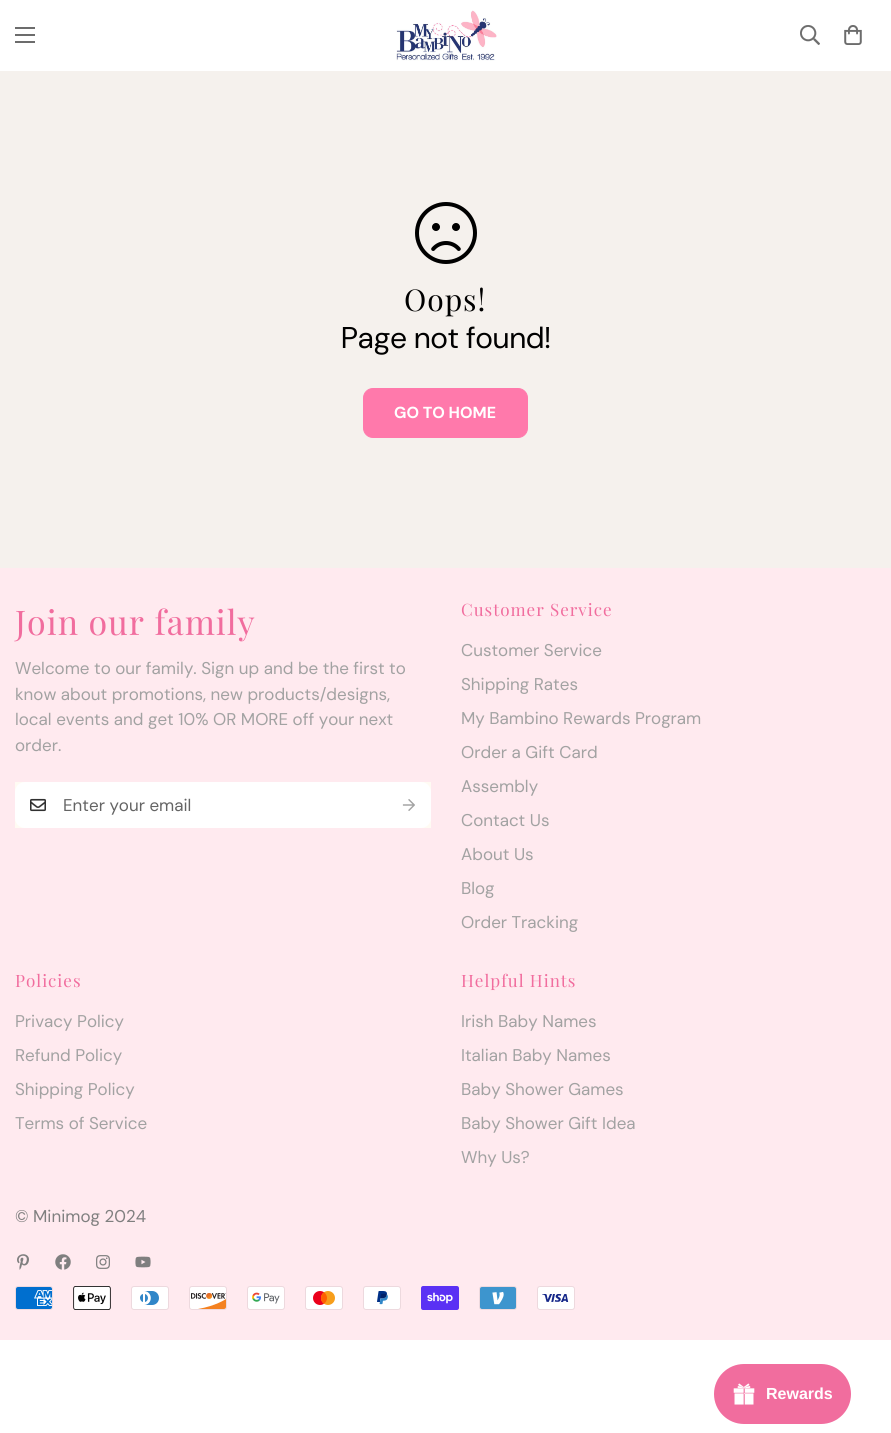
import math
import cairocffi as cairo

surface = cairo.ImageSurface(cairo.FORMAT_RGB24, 891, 1433)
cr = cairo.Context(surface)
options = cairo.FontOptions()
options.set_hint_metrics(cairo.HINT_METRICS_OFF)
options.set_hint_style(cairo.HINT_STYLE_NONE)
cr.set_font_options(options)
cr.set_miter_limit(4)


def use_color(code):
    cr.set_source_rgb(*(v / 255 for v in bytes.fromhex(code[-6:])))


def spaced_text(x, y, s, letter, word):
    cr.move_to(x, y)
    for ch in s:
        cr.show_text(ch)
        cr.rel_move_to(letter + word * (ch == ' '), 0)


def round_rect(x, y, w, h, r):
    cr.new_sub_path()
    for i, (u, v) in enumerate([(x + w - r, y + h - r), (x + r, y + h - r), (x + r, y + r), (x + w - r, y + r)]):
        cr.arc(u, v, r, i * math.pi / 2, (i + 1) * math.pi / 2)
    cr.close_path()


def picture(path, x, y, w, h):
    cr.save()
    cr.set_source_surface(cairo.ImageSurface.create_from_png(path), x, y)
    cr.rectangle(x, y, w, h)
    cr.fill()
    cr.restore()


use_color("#ffffff")
cr.paint()
use_color("#6c6c6c")
cr.rectangle(15, 34, 20, 2)
cr.fill()
cr.rectangle(15, 27, 20, 2)
cr.fill()
cr.rectangle(15, 41, 20, 2)
cr.fill()
picture("img1.png", 396, 10, 101, 51)
picture("img2.png", 800, 25, 20, 20)
picture("img3.png", 844, 25, 18, 20)
use_color("#f5f1ed")
cr.rectangle(0, 71, 891, 497)
cr.fill()
picture("img4.png", 415, 202, 62, 62)
cr.select_font_face("Playfair Display")
cr.set_font_size(30)
use_color("#000000")
spaced_text(404, 311, "Oops!", 1, 0)
cr.select_font_face("DM Sans")
cr.move_to(341, 348)
cr.show_text("Page not found!")
use_color("#ff79ab")
round_rect(363.5, 388.5, 164, 49, 9.5)
cr.fill_preserve()
cr.set_line_width(1)
cr.stroke()
cr.select_font_face("DM Sans", cairo.FONT_SLANT_NORMAL, cairo.FONT_WEIGHT_BOLD)
cr.set_font_size(16)
use_color("#ffffff")
cr.move_to(394, 418)
cr.show_text("GO TO HOME")
use_color("#ffeaef")
cr.rectangle(0, 568, 891, 772)
cr.fill()
cr.select_font_face("Playfair Display")
cr.set_font_size(34)
use_color("#f16d9e")
spaced_text(15, 635, "Join our family", 1, 0)
cr.select_font_face("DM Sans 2")
cr.set_font_size(17)
use_color("#a2a2a2")
cr.move_to(15, 674)
cr.show_text("Welcome to our family. Sign up and be the first to")
cr.move_to(15, 700)
cr.show_text("know about promotions, new products/designs,")
cr.move_to(15, 725)
cr.show_text("local events and get 10% OR MORE off your next")
cr.move_to(15, 751)
cr.show_text("order.")
use_color("#fffbf3")
cr.rectangle(15, 782, 416, 46)
cr.fill()
use_color("#ffffff")
round_rect(15, 782, 416, 46, 10)
cr.fill()
picture("img5.png", 30, 798, 16, 14)
use_color("#646464")
cr.move_to(63, 811)
cr.show_text("Enter your email")
picture("img6.png", 402, 799, 13, 12)
cr.select_font_face("Playfair Display")
use_color("#f16d9e")
spaced_text(461, 616, "Customer Service", 1, 0)
cr.select_font_face("DM Sans 2")
use_color("#a2a2a2")
cr.move_to(461, 656)
cr.show_text("Customer Service")
cr.move_to(461, 690)
cr.show_text("Shipping Rates")
cr.move_to(461, 724)
cr.show_text("My Bambino Rewards Program")
cr.move_to(461, 758)
cr.show_text("Order a Gift Card")
cr.move_to(461, 792)
cr.show_text("Assembly")
cr.move_to(461, 826)
cr.show_text("Contact Us")
cr.move_to(461, 860)
cr.show_text("About Us")
cr.move_to(461, 894)
cr.show_text("Blog")
cr.move_to(461, 928)
cr.show_text("Order Tracking")
cr.select_font_face("Playfair Display")
use_color("#f16d9e")
spaced_text(15, 987, "Policies", 1, 0)
cr.select_font_face("DM Sans 2")
use_color("#a2a2a2")
cr.move_to(15, 1027)
cr.show_text("Privacy Policy")
cr.move_to(15, 1061)
cr.show_text("Refund Policy")
cr.move_to(15, 1095)
cr.show_text("Shipping Policy")
cr.move_to(15, 1129)
cr.show_text("Terms of Service")
cr.select_font_face("Playfair Display")
use_color("#f16d9e")
spaced_text(461, 987, "Helpful Hints", 1, 0)
cr.select_font_face("DM Sans 2")
use_color("#a2a2a2")
cr.move_to(461, 1027)
cr.show_text("Irish Baby Names")
cr.move_to(461, 1061)
cr.show_text("Italian Baby Names")
cr.move_to(461, 1095)
cr.show_text("Baby Shower Games")
cr.move_to(461, 1129)
cr.show_text("Baby Shower Gift Idea")
cr.move_to(461, 1163)
cr.show_text("Why Us?")
use_color("#7f7f7f")
cr.move_to(15, 1222)
cr.show_text("© Minimog 2024")
picture("img7.png", 17, 1254, 12, 16)
picture("img8.png", 55, 1254, 16, 16)
picture("img9.png", 96, 1255, 14, 14)
picture("img10.png", 135, 1256, 16, 12)
picture("img11.png", 15, 1286, 38, 24)
picture("img12.png", 73, 1286, 38, 24)
picture("img13.png", 131, 1286, 38, 24)
picture("img14.png", 189, 1286, 38, 24)
picture("img15.png", 247, 1286, 38, 24)
picture("img16.png", 305, 1286, 38, 24)
picture("img17.png", 363, 1286, 38, 24)
picture("img18.png", 421, 1286, 38, 24)
picture("img19.png", 479, 1286, 38, 24)
picture("img20.png", 537, 1286, 38, 24)
use_color("#f16d9e")
round_rect(714, 1364, 137, 60, 30)
cr.fill()
picture("img21.png", 733, 1383, 22, 22)
cr.select_font_face("Liberation Sans", cairo.FONT_SLANT_NORMAL, cairo.FONT_WEIGHT_BOLD)
cr.set_font_size(16)
use_color("#ffffff")
cr.move_to(766, 1399)
cr.show_text("Rewards")
surface.write_to_png("result.png")
